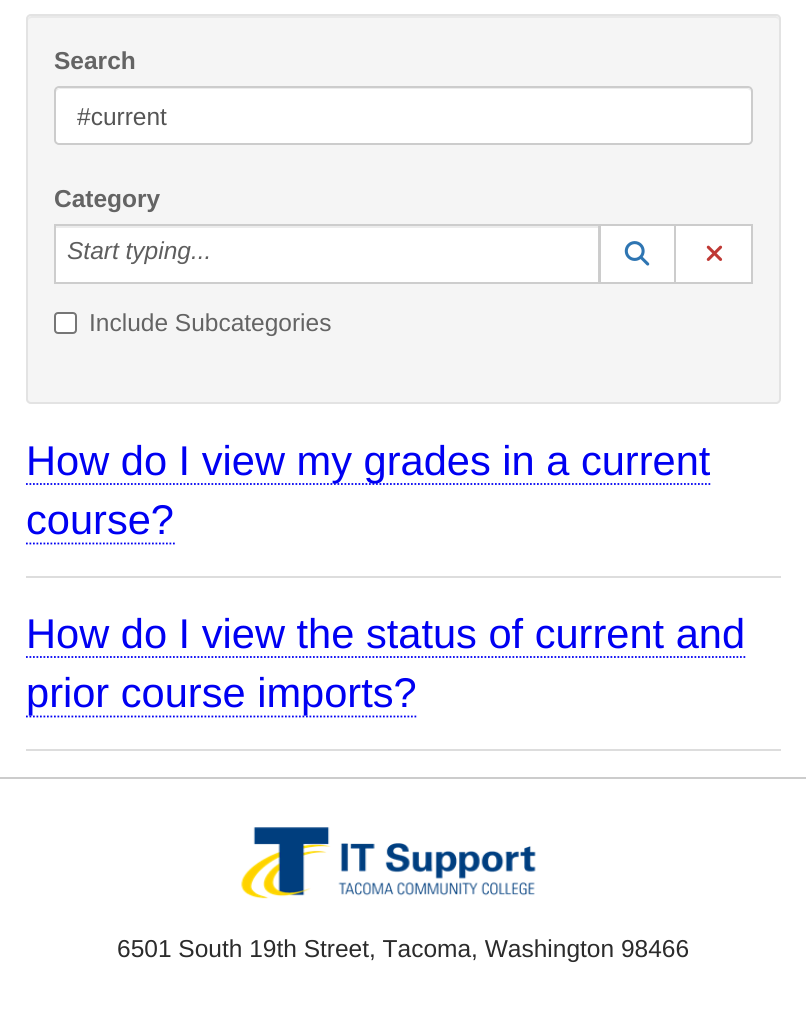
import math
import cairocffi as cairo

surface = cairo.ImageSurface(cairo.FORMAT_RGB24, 806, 1036)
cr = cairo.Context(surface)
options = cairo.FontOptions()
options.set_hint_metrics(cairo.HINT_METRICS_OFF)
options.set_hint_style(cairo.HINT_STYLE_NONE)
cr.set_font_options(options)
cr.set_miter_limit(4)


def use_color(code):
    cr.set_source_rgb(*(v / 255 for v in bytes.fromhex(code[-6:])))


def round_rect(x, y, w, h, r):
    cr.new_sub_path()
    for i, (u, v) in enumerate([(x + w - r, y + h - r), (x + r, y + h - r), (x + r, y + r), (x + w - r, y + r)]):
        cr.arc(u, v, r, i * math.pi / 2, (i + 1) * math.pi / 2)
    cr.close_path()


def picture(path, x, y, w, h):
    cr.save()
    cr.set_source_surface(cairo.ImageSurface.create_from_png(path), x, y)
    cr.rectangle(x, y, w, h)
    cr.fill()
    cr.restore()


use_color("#ffffff")
cr.paint()
use_color("#f5f5f5")
round_rect(26, 14, 755, 390, 5)
cr.fill()
use_color("#e9e9e9")
cr.new_path()
cr.move_to(32, 18)
cr.line_to(775, 18)
cr.curve_to(777, 18, 779, 19, 779, 21)
cr.line_to(779, 20)
cr.curve_to(779, 18, 777, 16, 775, 16)
cr.line_to(32, 16)
cr.curve_to(30, 16, 28, 18, 28, 20)
cr.line_to(28, 21)
cr.curve_to(28, 19, 30, 18, 32, 18)
cr.close_path()
cr.fill()
round_rect(27, 15, 753, 388, 4)
use_color("#e3e3e3")
cr.stroke()
cr.select_font_face("Liberation Sans", cairo.FONT_SLANT_NORMAL, cairo.FONT_WEIGHT_BOLD)
cr.set_font_size(24.5)
use_color("#646464")
cr.move_to(54, 69)
cr.show_text("Search")
use_color("#ffffff")
round_rect(54, 86, 699, 59, 5)
cr.fill()
use_color("#ececec")
cr.new_path()
cr.move_to(60, 89)
cr.line_to(747, 89)
cr.curve_to(749, 89, 751, 91, 751, 93)
cr.curve_to(751, 90, 750, 88, 747, 88)
cr.line_to(60, 88)
cr.line_to(57, 89)
cr.line_to(56, 90)
cr.line_to(56, 93)
cr.curve_to(56, 91, 58, 89, 60, 89)
cr.close_path()
cr.fill()
round_rect(55, 87, 697, 57, 4)
use_color("#cccccc")
cr.stroke()
cr.select_font_face("Liberation Sans")
use_color("#555555")
cr.move_to(77, 125)
cr.show_text("#current")
cr.select_font_face("Liberation Sans", cairo.FONT_SLANT_NORMAL, cairo.FONT_WEIGHT_BOLD)
use_color("#646464")
cr.move_to(54, 207)
cr.show_text("Category")
use_color("#ffffff")
cr.rectangle(56, 228, 542, 54)
cr.fill()
use_color("#ececec")
cr.rectangle(56, 226, 543, 2)
cr.fill()
cr.rectangle(55, 225, 544, 58)
use_color("#cdcdcd")
cr.stroke()
cr.select_font_face("Liberation Sans", cairo.FONT_SLANT_ITALIC)
use_color("#5e5e5e")
cr.move_to(67, 259)
cr.show_text("Start typing...")
use_color("#ffffff")
cr.rectangle(600, 225, 75, 58)
cr.fill_preserve()
use_color("#cccccc")
cr.stroke()
picture("img1.png", 624, 241, 26, 25)
use_color("#ffffff")
cr.rectangle(675, 225, 77, 58)
cr.fill_preserve()
use_color("#cccccc")
cr.stroke()
picture("img2.png", 706, 245, 17, 16)
use_color("#ffffff")
round_rect(55, 313, 21, 20, 3)
cr.fill_preserve()
use_color("#767676")
cr.stroke()
cr.select_font_face("Liberation Sans")
use_color("#646464")
cr.move_to(89, 331)
cr.show_text("Include Subcategories")
use_color("#dddddd")
cr.rectangle(26, 576, 755, 2)
cr.fill()
cr.new_path()
cr.move_to(26, 484)
cr.line_to(712, 484)
use_color("#0000f2")
cr.set_line_width(1.8)
cr.set_dash([1.75, 1.75])
cr.stroke()
cr.set_font_size(41.6)
cr.move_to(26, 475)
cr.show_text("How do I view my grades in a current")
cr.move_to(26, 534)
cr.show_text("course?")
cr.new_path()
cr.move_to(26, 543.5)
cr.line_to(175, 543.5)
cr.stroke()
use_color("#dddddd")
cr.rectangle(26, 749, 755, 2)
cr.fill()
use_color("#0000f2")
cr.move_to(26, 648)
cr.show_text("How do I view the status of current and")
cr.new_path()
cr.move_to(26, 657)
cr.line_to(745.5, 657)
cr.stroke()
cr.new_path()
cr.move_to(26, 716.5)
cr.line_to(418, 716.5)
cr.stroke()
cr.move_to(26, 707)
cr.show_text("prior course imports?")
use_color("#cccccc")
cr.rectangle(0, 777, 806, 2)
cr.fill()
picture("img3.png", 241, 827, 295, 72)
cr.set_font_size(24.5)
use_color("#2b2b2b")
cr.move_to(117, 957)
cr.show_text("6501 South 19th Street, Tacoma, Washington 98466")
surface.write_to_png("result.png")
